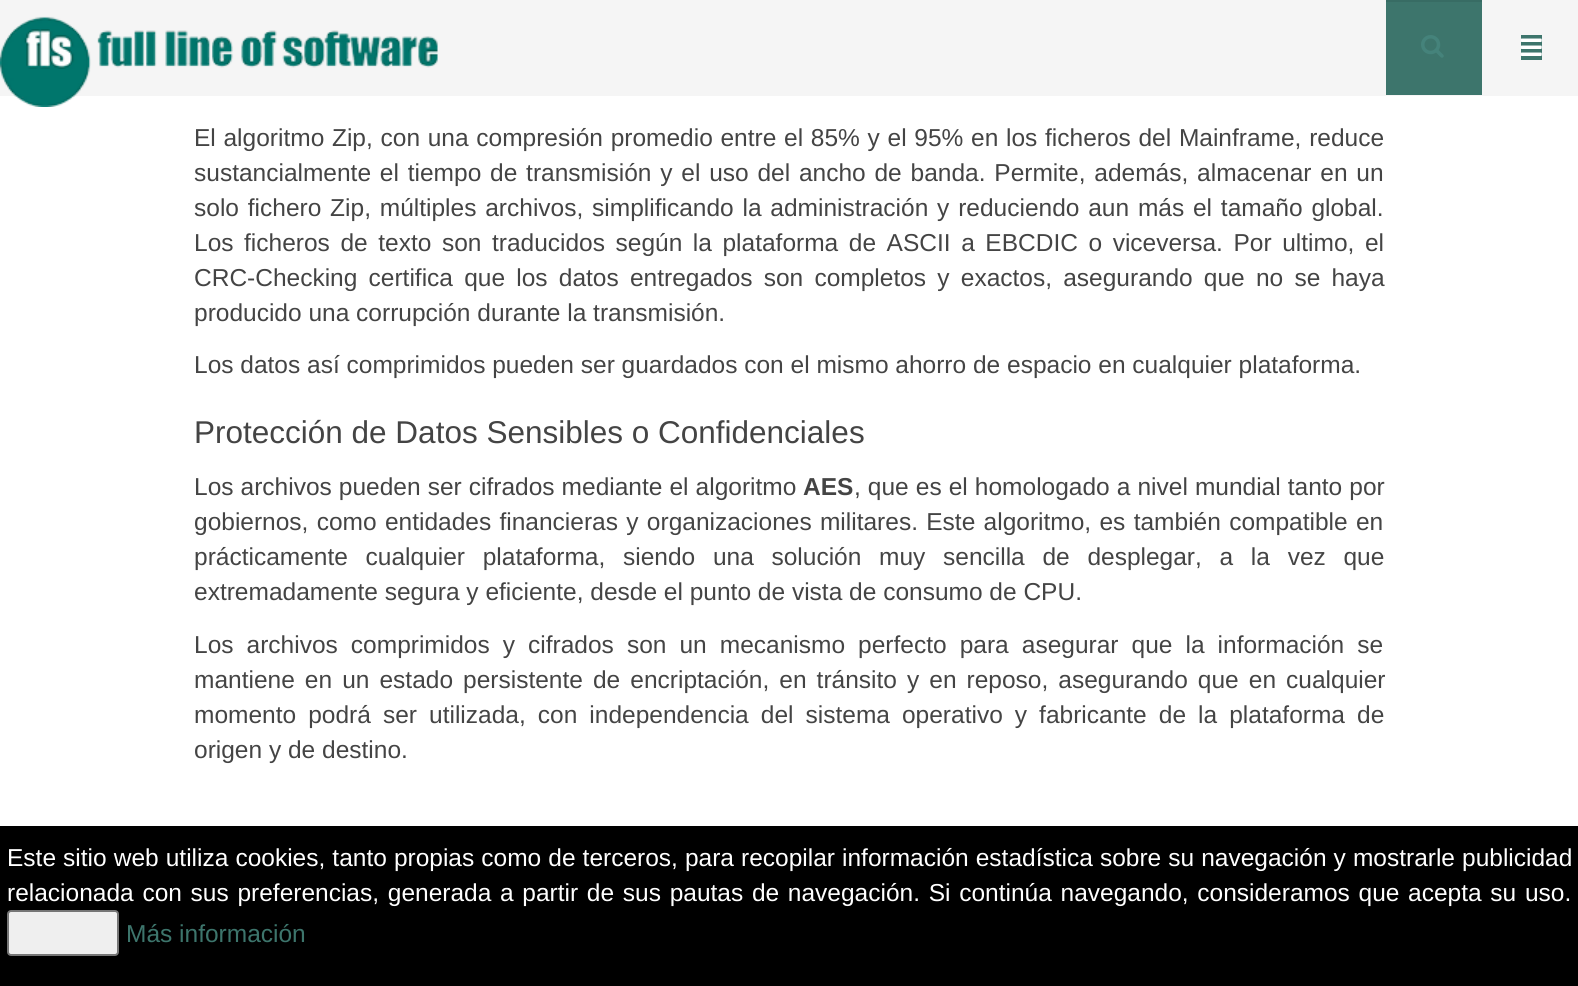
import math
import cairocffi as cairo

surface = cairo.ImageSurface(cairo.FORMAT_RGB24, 1578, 986)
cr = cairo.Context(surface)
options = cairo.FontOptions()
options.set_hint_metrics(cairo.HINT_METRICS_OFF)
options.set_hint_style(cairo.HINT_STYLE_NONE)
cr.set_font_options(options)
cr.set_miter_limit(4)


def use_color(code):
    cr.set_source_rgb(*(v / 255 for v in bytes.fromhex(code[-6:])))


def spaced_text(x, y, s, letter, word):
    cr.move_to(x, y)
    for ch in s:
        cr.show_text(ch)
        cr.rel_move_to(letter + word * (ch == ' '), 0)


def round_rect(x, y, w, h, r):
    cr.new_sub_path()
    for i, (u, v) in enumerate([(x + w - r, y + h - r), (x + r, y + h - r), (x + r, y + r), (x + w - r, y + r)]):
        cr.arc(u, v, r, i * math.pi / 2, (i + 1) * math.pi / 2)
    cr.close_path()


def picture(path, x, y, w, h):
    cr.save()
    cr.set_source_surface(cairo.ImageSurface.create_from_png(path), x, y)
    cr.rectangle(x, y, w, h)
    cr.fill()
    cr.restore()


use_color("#ffffff")
cr.paint()
use_color("#f5f5f5")
cr.rectangle(0, 0, 1578, 96)
cr.fill()
picture("img1.png", 0, 16, 438, 91)
use_color("#3d756c")
cr.rectangle(1386, 2, 96, 93)
cr.fill()
use_color("#386c64")
cr.rectangle(1386, 0, 96, 2)
cr.fill()
picture("img2.png", 1421, 35, 23, 23)
use_color("#3d756c")
cr.rectangle(1521, 35, 21, 25)
cr.fill()
picture("img3.png", 1521, 38, 21, 18)
cr.select_font_face("Liberation Sans")
cr.set_font_size(24.5)
use_color("#444444")
spaced_text(194, 146, "El algoritmo Zip, con una compresión promedio entre el 85% y el 95% en los ficheros del Mainframe, reduce", 0, 0.9)
spaced_text(194, 181, "sustancialmente el tiempo de transmisión y el uso del ancho de banda. Permite, además, almacenar en un", 0, 2)
spaced_text(194, 216, "solo fichero Zip, múltiples archivos, simplificando la administración y reduciendo aun más el tamaño global.", 0, 2)
spaced_text(194, 251, "Los ficheros de texto son traducidos según la plataforma de ASCII a EBCDIC o viceversa. Por ultimo, el", 0, 3.75)
spaced_text(194, 286, "CRC-Checking certifica que los datos entregados son completos y exactos, asegurando que no se haya", 0, 4.4)
cr.move_to(194, 321)
cr.show_text("producido una corrupción durante la transmisión.")
cr.move_to(194, 373)
cr.show_text("Los datos así comprimidos pueden ser guardados con el mismo ahorro de espacio en cualquier plataforma.")
cr.set_font_size(31.5)
cr.move_to(194, 443)
cr.show_text("Protección de Datos Sensibles o Confidenciales")
cr.set_font_size(24.5)
spaced_text(194, 495, "Los archivos pueden ser cifrados mediante el algoritmo", 0, 0.25)
cr.select_font_face("Liberation Sans", cairo.FONT_SLANT_NORMAL, cairo.FONT_WEIGHT_BOLD)
cr.move_to(803, 495)
cr.show_text("AES")
cr.select_font_face("Liberation Sans")
spaced_text(854, 495, ", que es el homologado a nivel mundial tanto por", 0, 0.25)
spaced_text(194, 530, "gobiernos, como entidades financieras y organizaciones militares. Este algoritmo, es también compatible en", 0, 1.5)
spaced_text(194, 565, "prácticamente cualquier plataforma, siendo una solución muy sencilla de desplegar, a la vez que", 0, 10.9)
cr.move_to(194, 600)
cr.show_text("extremadamente segura y eficiente, desde el punto de vista de consumo de CPU.")
spaced_text(194, 653, "Los archivos comprimidos y cifrados son un mecanismo perfecto para asegurar que la información se", 0, 6.25)
spaced_text(194, 688, "mantiene en un estado persistente de encriptación, en tránsito y en reposo, asegurando que en cualquier", 0, 3.25)
spaced_text(194, 723, "momento podrá ser utilizada, con independencia del sistema operativo y fabricante de la plataforma de", 0, 5.25)
cr.move_to(194, 758)
cr.show_text("origen y de destino.")
use_color("#000000")
cr.rectangle(0, 826, 1578, 160)
cr.fill()
use_color("#ffffff")
spaced_text(7, 866, "Este sitio web utiliza cookies, tanto propias como de terceros, para recopilar información estadística sobre su navegación y mostrarle publicidad", 0, 0.25)
spaced_text(7, 901, "relacionada con sus preferencias, generada a partir de sus pautas de navegación. Si continúa navegando, consideramos que acepta su uso.", 0, 1.9)
use_color("#efefef")
round_rect(8, 911, 110, 44, 3)
cr.fill_preserve()
use_color("#767676")
cr.stroke()
use_color("#3d756c")
cr.move_to(126, 942)
cr.show_text("Más información")
surface.write_to_png("result.png")
